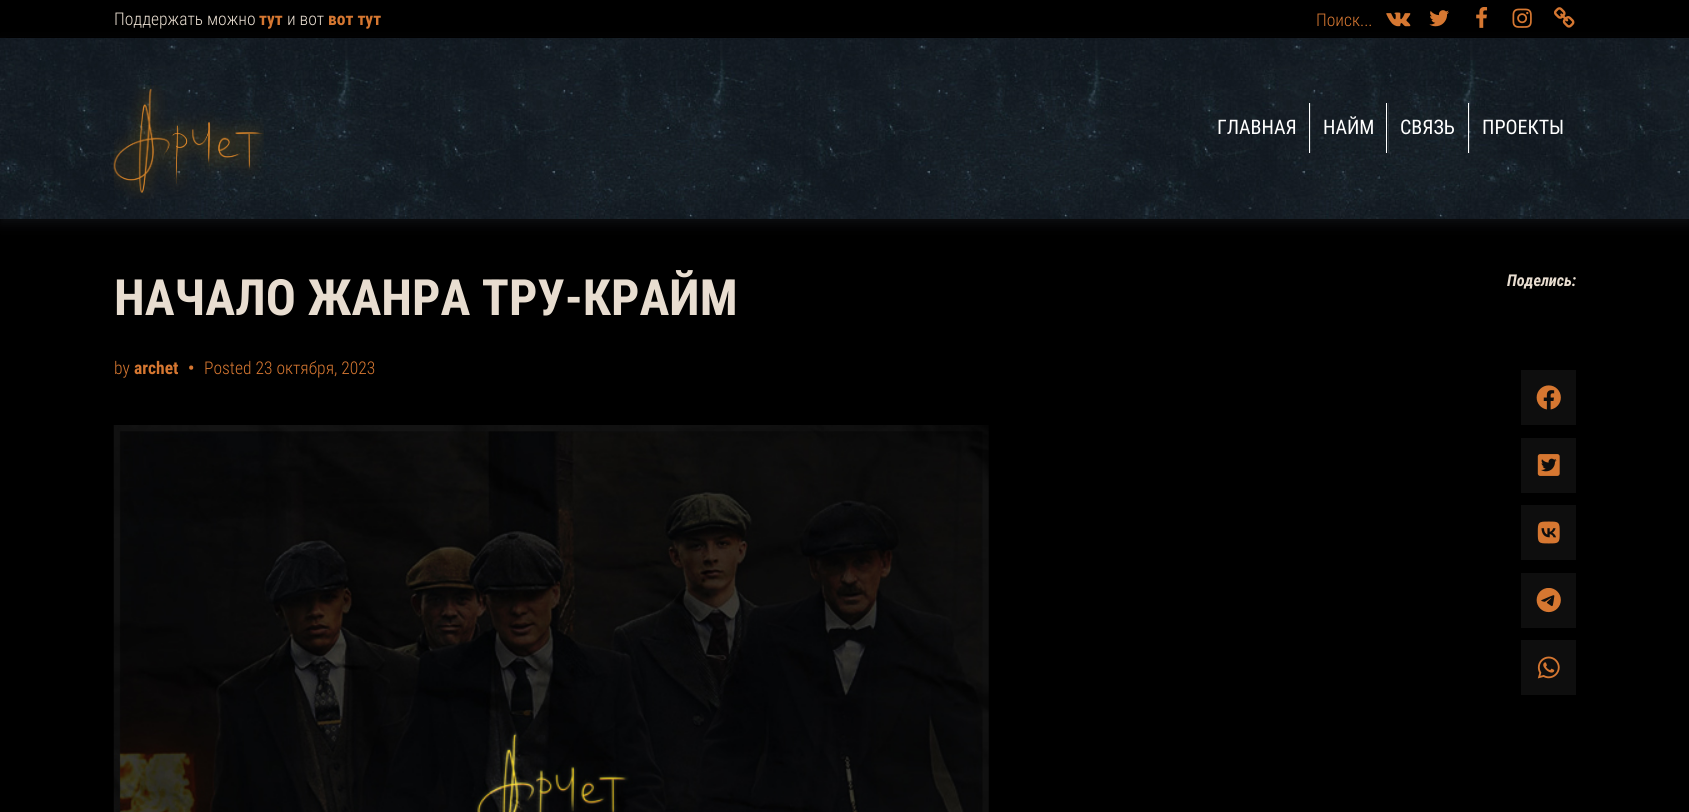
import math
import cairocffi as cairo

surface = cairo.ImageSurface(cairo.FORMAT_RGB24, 1689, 812)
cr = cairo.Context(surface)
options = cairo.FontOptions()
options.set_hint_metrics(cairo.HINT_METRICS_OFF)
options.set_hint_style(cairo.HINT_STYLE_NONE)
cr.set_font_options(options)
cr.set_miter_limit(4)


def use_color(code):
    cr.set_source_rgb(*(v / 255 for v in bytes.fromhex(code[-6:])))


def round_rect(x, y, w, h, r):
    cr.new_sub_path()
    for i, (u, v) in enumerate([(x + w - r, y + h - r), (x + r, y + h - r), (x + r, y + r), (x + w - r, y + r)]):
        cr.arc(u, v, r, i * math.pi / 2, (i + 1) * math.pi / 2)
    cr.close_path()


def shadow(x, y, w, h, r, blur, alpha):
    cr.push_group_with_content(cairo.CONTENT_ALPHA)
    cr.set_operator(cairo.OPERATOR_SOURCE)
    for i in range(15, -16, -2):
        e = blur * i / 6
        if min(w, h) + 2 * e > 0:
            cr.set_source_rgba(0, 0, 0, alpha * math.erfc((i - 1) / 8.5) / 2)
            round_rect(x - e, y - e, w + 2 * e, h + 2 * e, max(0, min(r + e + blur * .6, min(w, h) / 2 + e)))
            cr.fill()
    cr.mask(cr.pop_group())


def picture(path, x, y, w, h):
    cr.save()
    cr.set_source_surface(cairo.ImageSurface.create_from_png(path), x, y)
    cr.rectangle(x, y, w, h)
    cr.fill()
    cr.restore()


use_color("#000000")
cr.paint()
use_color("#414756")
shadow(0, 43, 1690, 181, 0, 6, 0.2)
use_color("#000000")
cr.rectangle(6, 37, 1678, 1)
cr.fill()
cr.select_font_face("Roboto Condensed Light")
cr.set_font_size(17.5)
use_color("#e8ddd0")
cr.move_to(114, 25)
cr.show_text("Поддержать можно")
cr.select_font_face("Roboto Condensed", cairo.FONT_SLANT_NORMAL, cairo.FONT_WEIGHT_BOLD)
use_color("#d67731")
cr.move_to(259, 25)
cr.show_text("тут")
cr.select_font_face("Roboto Condensed Light")
use_color("#e8ddd0")
cr.move_to(287, 25)
cr.show_text("и вот")
cr.select_font_face("Roboto Condensed", cairo.FONT_SLANT_NORMAL, cairo.FONT_WEIGHT_BOLD)
use_color("#d67731")
cr.move_to(328, 25)
cr.show_text("вот тут")
cr.select_font_face("Roboto Condensed Light")
cr.move_to(1316, 26)
cr.show_text("Поиск...")
picture("img1.png", 1386, 12, 25, 15)
picture("img2.png", 1429, 10, 20, 17)
picture("img3.png", 1476, 7, 12, 21)
picture("img4.png", 1512, 8, 20, 20)
picture("img5.png", 1554, 7, 21, 21)
picture("img6.png", 0, 38, 1689, 181)
picture("img7.png", 113, 85, 151, 114)
cr.select_font_face("Roboto Condensed")
cr.set_font_size(20)
use_color("#ffffff")
cr.move_to(1217, 134)
cr.show_text("ГЛАВНАЯ")
cr.set_source_rgba(1, 1, 1, 0.1)
cr.rectangle(1310, 103, 1, 50)
cr.fill()
use_color("#ffffff")
cr.rectangle(1309, 103, 1, 50)
cr.fill()
cr.move_to(1323, 134)
cr.show_text("НАЙМ")
cr.set_source_rgba(1, 1, 1, 0.1)
cr.rectangle(1388, 103, 1, 50)
cr.fill()
use_color("#ffffff")
cr.rectangle(1386, 103, 1, 50)
cr.fill()
cr.move_to(1400, 134)
cr.show_text("СВЯЗЬ")
cr.set_source_rgba(1, 1, 1, 0.1)
cr.rectangle(1469, 103, 1, 50)
cr.fill()
use_color("#ffffff")
cr.rectangle(1468, 103, 1, 50)
cr.fill()
cr.move_to(1482, 134)
cr.show_text("ПРОЕКТЫ")
cr.select_font_face("Roboto Condensed", cairo.FONT_SLANT_NORMAL, cairo.FONT_WEIGHT_BOLD)
cr.set_font_size(50)
use_color("#e8ddd0")
cr.move_to(114, 315)
cr.show_text("НАЧАЛО ЖАНРА ТРУ-КРАЙМ")
cr.select_font_face("Roboto Condensed Light")
cr.set_font_size(17.5)
use_color("#d67731")
cr.move_to(114, 374)
cr.show_text("by")
cr.select_font_face("Roboto Condensed", cairo.FONT_SLANT_NORMAL, cairo.FONT_WEIGHT_BOLD)
cr.move_to(134, 374)
cr.show_text("archet")
cr.move_to(188, 374)
cr.show_text("•")
cr.select_font_face("Roboto Condensed Light")
cr.move_to(204, 374)
cr.show_text("Posted 23 октября, 2023")
picture("img8.png", 113, 425, 876, 387)
cr.select_font_face("Roboto Condensed", cairo.FONT_SLANT_ITALIC, cairo.FONT_WEIGHT_BOLD)
cr.set_font_size(16.25)
use_color("#e8ddd0")
cr.move_to(1507, 286)
cr.show_text("Поделись:")
use_color("#0e0e0e")
cr.rectangle(1521, 370, 55, 55)
cr.fill()
picture("img9.png", 1536, 385, 25, 25)
cr.rectangle(1521, 438, 55, 55)
cr.fill()
picture("img10.png", 1537, 454, 23, 22)
cr.rectangle(1521, 505, 55, 55)
cr.fill()
picture("img11.png", 1537, 521, 23, 23)
cr.rectangle(1521, 573, 55, 55)
cr.fill()
picture("img12.png", 1536, 588, 25, 25)
cr.rectangle(1521, 640, 55, 55)
cr.fill()
picture("img13.png", 1537, 656, 23, 23)
surface.write_to_png("result.png")
